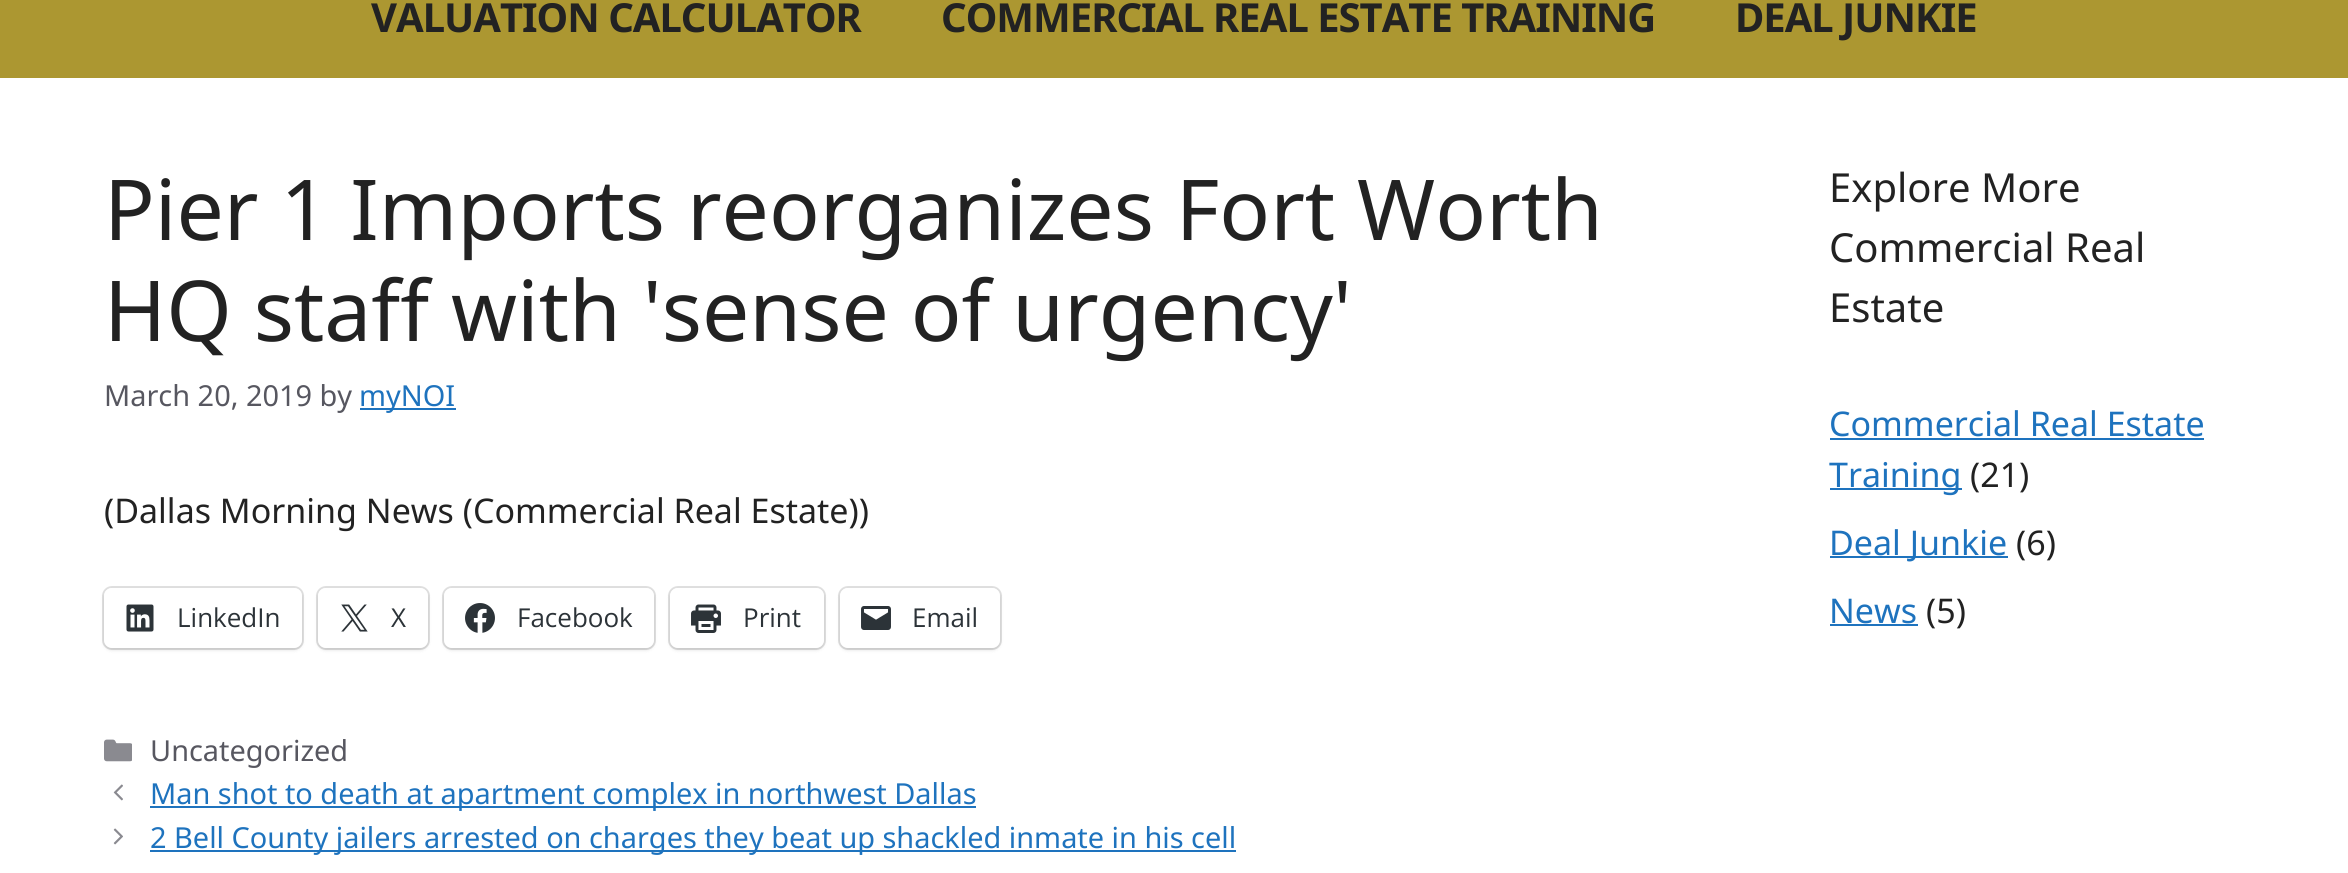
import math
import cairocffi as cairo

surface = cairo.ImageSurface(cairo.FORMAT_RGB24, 2348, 873)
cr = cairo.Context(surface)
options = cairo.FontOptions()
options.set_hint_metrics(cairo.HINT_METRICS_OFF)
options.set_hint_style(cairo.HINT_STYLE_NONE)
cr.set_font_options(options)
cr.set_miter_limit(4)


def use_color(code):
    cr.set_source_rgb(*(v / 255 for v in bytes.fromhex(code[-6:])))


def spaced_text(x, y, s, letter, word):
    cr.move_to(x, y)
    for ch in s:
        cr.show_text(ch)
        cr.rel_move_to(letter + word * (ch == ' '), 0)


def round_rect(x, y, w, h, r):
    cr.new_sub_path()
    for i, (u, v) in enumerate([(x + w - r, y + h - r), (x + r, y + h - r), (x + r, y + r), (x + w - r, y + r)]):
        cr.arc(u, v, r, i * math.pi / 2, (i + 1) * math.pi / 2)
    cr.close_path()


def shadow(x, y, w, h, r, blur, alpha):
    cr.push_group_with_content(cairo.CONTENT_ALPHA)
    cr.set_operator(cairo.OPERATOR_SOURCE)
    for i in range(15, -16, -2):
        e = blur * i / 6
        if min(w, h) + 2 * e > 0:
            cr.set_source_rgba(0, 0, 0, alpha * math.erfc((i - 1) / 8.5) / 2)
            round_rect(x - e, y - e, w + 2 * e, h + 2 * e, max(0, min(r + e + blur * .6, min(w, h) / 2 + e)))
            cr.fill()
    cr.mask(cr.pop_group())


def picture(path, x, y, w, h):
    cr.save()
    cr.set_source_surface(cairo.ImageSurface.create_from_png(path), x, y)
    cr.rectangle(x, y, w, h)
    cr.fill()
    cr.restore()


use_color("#ffffff")
cr.paint()
use_color("#ac9731")
cr.rectangle(0, 0, 2348, 78)
cr.fill()
cr.select_font_face("Noto Sans", cairo.FONT_SLANT_NORMAL, cairo.FONT_WEIGHT_BOLD)
cr.set_font_size(40)
use_color("#222222")
spaced_text(371, 32, "VALUATION CALCULATOR", -1, 0)
spaced_text(941, 32, "COMMERCIAL REAL ESTATE TRAINING", -1, 0)
spaced_text(1735, 32, "DEAL JUNKIE", -1, 0)
cr.select_font_face("Noto Sans")
cr.set_font_size(84)
cr.move_to(104, 240)
cr.show_text("Pier 1 Imports reorganizes Fort Worth")
cr.move_to(104, 341)
cr.show_text("HQ staff with 'sense of urgency'")
cr.set_font_size(28.9)
use_color("#575760")
cr.move_to(104, 406)
cr.show_text("March 20, 2019 by")
use_color("#1e73be")
cr.rectangle(360, 408, 96, 2)
cr.fill()
cr.move_to(359, 406)
cr.show_text("myNOI")
cr.set_font_size(34)
use_color("#222222")
cr.move_to(104, 523)
cr.show_text("(Dallas Morning News (Commercial Real Estate))")
round_rect(103, 587, 200, 62, 9)
use_color("#e0e0e0")
cr.stroke()
use_color("#000000")
shadow(104, 590, 198, 60, 8, 2, 0.12)
use_color("#ffffff")
round_rect(104, 588, 198, 60, 8)
cr.fill()
picture("img1.png", 126, 604, 28, 28)
cr.select_font_face("Open Sans")
cr.set_font_size(26)
use_color("#2c3338")
cr.move_to(177, 627)
cr.show_text("LinkedIn")
round_rect(317, 587, 112, 62, 9)
use_color("#e0e0e0")
cr.stroke()
use_color("#000000")
shadow(318, 590, 110, 60, 8, 2, 0.12)
use_color("#ffffff")
round_rect(318, 588, 110, 60, 8)
cr.fill()
picture("img2.png", 341, 604, 27, 28)
use_color("#2c3338")
cr.move_to(391, 627)
cr.show_text("X")
round_rect(443, 587, 212, 62, 9)
use_color("#e0e0e0")
cr.stroke()
use_color("#000000")
shadow(444, 590, 210, 60, 8, 2, 0.12)
use_color("#ffffff")
round_rect(444, 588, 210, 60, 8)
cr.fill()
picture("img3.png", 465, 603, 30, 30)
use_color("#2c3338")
cr.move_to(517, 627)
cr.show_text("Facebook")
round_rect(669, 587, 156, 62, 9)
use_color("#e0e0e0")
cr.stroke()
use_color("#000000")
shadow(670, 590, 154, 60, 8, 2, 0.12)
use_color("#ffffff")
round_rect(670, 588, 154, 60, 8)
cr.fill()
picture("img4.png", 691, 604, 30, 29)
use_color("#2c3338")
cr.move_to(743, 627)
cr.show_text("Print")
round_rect(839, 587, 162, 62, 9)
use_color("#e0e0e0")
cr.stroke()
use_color("#000000")
shadow(840, 590, 160, 60, 8, 2, 0.12)
use_color("#ffffff")
round_rect(840, 588, 160, 60, 8)
cr.fill()
picture("img5.png", 861, 606, 30, 24)
use_color("#2c3338")
cr.move_to(912, 627)
cr.show_text("Email")
picture("img6.png", 104, 739, 28, 23)
cr.select_font_face("Noto Sans")
cr.set_font_size(28.9)
use_color("#575760")
cr.move_to(150, 761)
cr.show_text("Uncategorized")
picture("img7.png", 113, 784, 10, 17)
use_color("#1e73be")
cr.rectangle(150, 806, 826, 2)
cr.fill()
cr.move_to(150, 804)
cr.show_text("Man shot to death at apartment complex in northwest Dallas")
picture("img8.png", 113, 828, 10, 17)
cr.rectangle(150, 850, 1086, 2)
cr.fill()
cr.move_to(150, 848)
cr.show_text("2 Bell County jailers arrested on charges they beat up shackled inmate in his cell")
cr.set_font_size(40)
use_color("#222222")
cr.move_to(1829, 202)
cr.show_text("Explore More")
cr.move_to(1829, 262)
cr.show_text("Commercial Real")
cr.move_to(1829, 322)
cr.show_text("Estate")
cr.set_font_size(34)
use_color("#1e73be")
cr.move_to(1829, 436)
cr.show_text("Commercial Real Estate")
cr.rectangle(1830, 438, 374, 2)
cr.fill()
cr.rectangle(1830, 488, 132, 2)
cr.fill()
cr.move_to(1829, 487)
cr.show_text("Training")
use_color("#222222")
cr.move_to(1970, 487)
cr.show_text("(21)")
use_color("#1e73be")
cr.rectangle(1830, 556, 178, 2)
cr.fill()
cr.move_to(1829, 555)
cr.show_text("Deal Junkie")
use_color("#222222")
cr.move_to(2016, 555)
cr.show_text("(6)")
use_color("#1e73be")
cr.move_to(1829, 623)
cr.show_text("News")
cr.rectangle(1830, 624, 88, 2)
cr.fill()
use_color("#222222")
cr.move_to(1926, 623)
cr.show_text("(5)")
surface.write_to_png("result.png")
